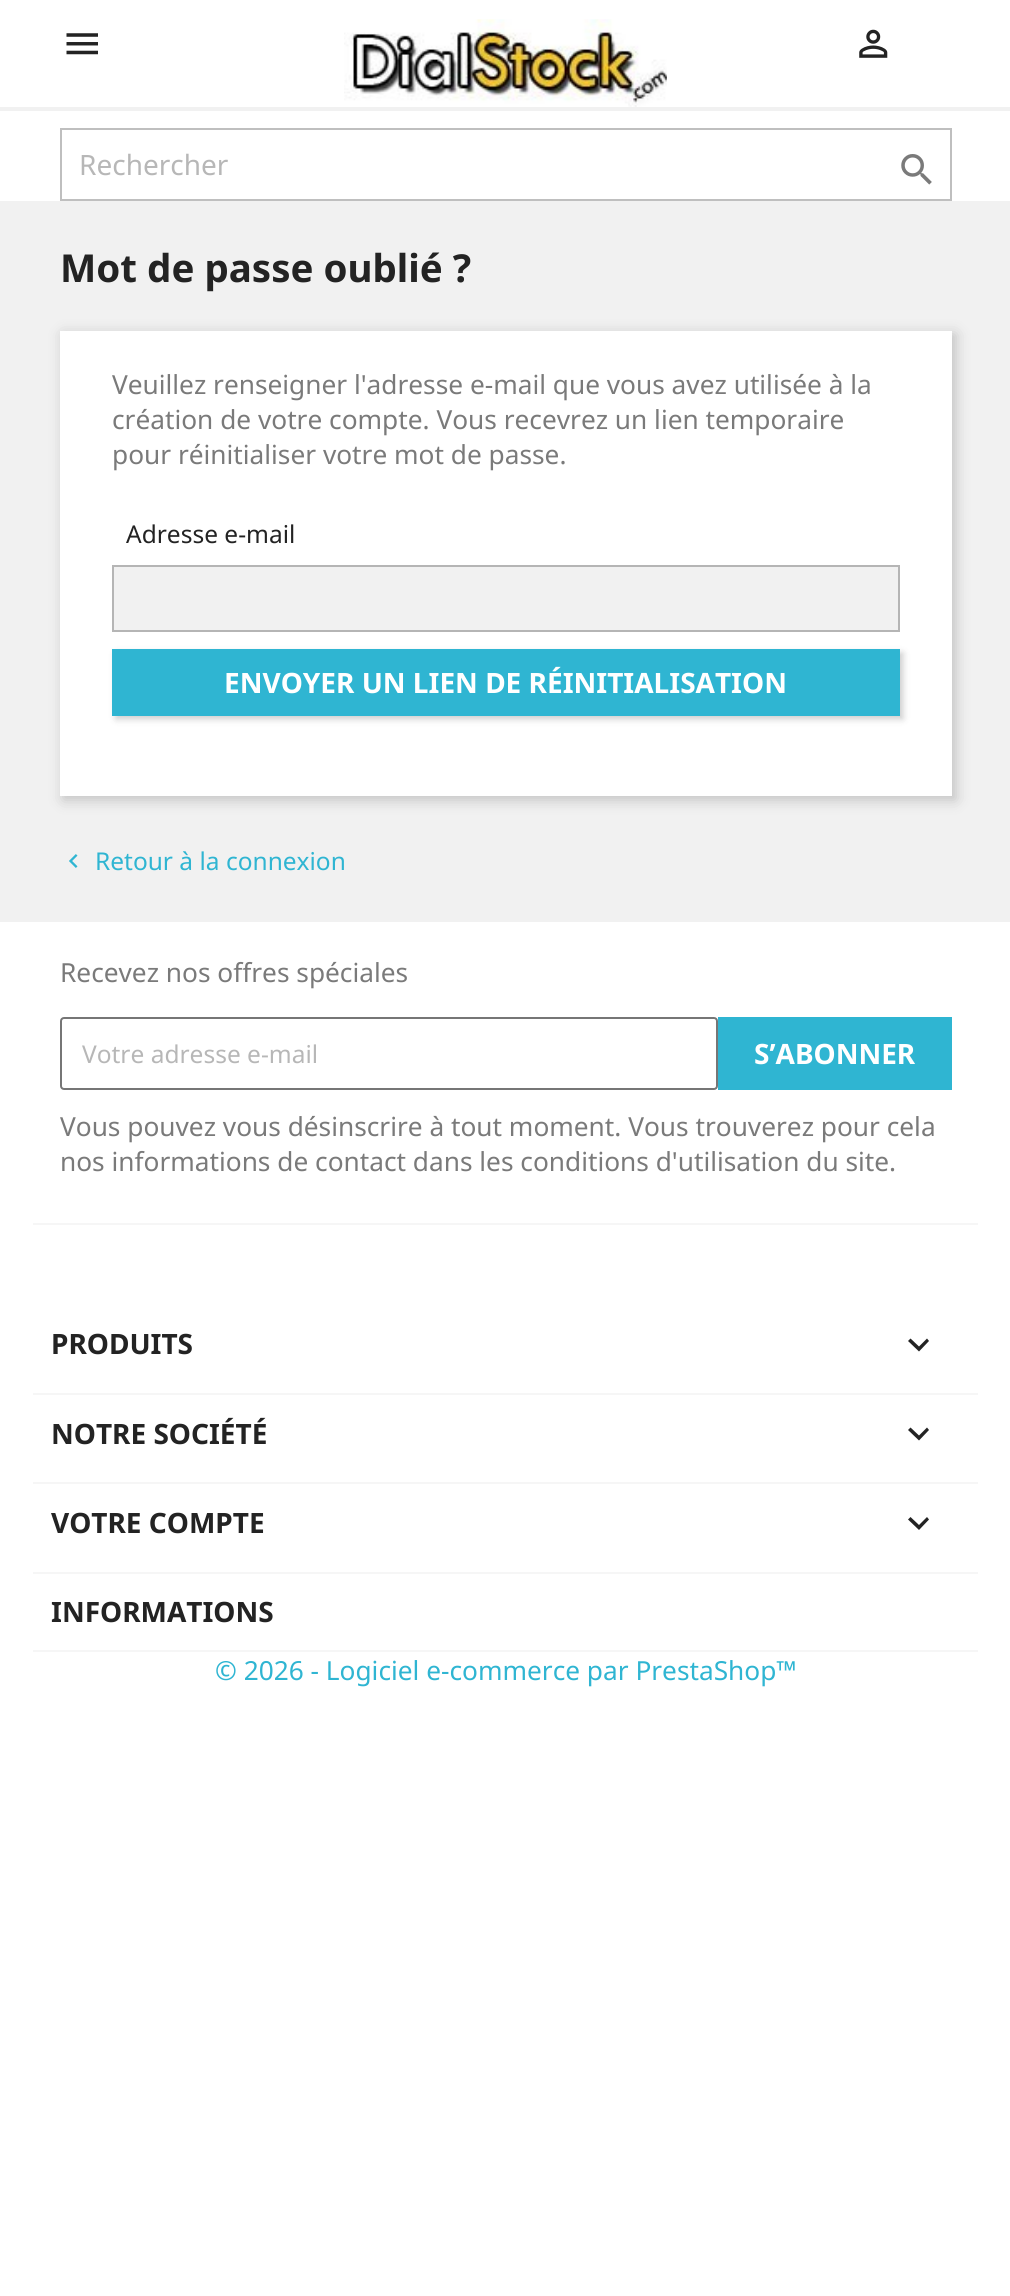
import math
import cairocffi as cairo

surface = cairo.ImageSurface(cairo.FORMAT_RGB24, 1010, 2296)
cr = cairo.Context(surface)
options = cairo.FontOptions()
options.set_hint_metrics(cairo.HINT_METRICS_OFF)
options.set_hint_style(cairo.HINT_STYLE_NONE)
cr.set_font_options(options)
cr.set_miter_limit(4)


def use_color(code):
    cr.set_source_rgb(*(v / 255 for v in bytes.fromhex(code[-6:])))


def round_rect(x, y, w, h, r):
    cr.new_sub_path()
    for i, (u, v) in enumerate([(x + w - r, y + h - r), (x + r, y + h - r), (x + r, y + r), (x + w - r, y + r)]):
        cr.arc(u, v, r, i * math.pi / 2, (i + 1) * math.pi / 2)
    cr.close_path()


def shadow(x, y, w, h, r, blur, alpha):
    cr.push_group_with_content(cairo.CONTENT_ALPHA)
    cr.set_operator(cairo.OPERATOR_SOURCE)
    for i in range(15, -16, -2):
        e = blur * i / 6
        if min(w, h) + 2 * e > 0:
            cr.set_source_rgba(0, 0, 0, alpha * math.erfc((i - 1) / 8.5) / 2)
            round_rect(x - e, y - e, w + 2 * e, h + 2 * e, max(0, min(r + e + blur * .6, min(w, h) / 2 + e)))
            cr.fill()
    cr.mask(cr.pop_group())


def picture(path, x, y, w, h):
    cr.save()
    cr.set_source_surface(cairo.ImageSurface.create_from_png(path), x, y)
    cr.rectangle(x, y, w, h)
    cr.fill()
    cr.restore()


use_color("#ffffff")
cr.paint()
use_color("#f1f1f1")
cr.rectangle(0, 107, 1010, 4)
cr.fill()
picture("img1.png", 66, 33, 32, 22)
picture("img2.png", 344, 19, 323, 88)
picture("img3.png", 859, 29, 29, 29)
cr.rectangle(61, 129, 890, 71)
use_color("#bfbfbf")
cr.stroke()
cr.select_font_face("Noto Sans")
cr.set_font_size(28)
use_color("#b7b7b7")
cr.move_to(79, 175)
cr.show_text("Rechercher")
picture("img4.png", 901, 154, 31, 31)
use_color("#f1f1f1")
cr.rectangle(0, 201, 1010, 721)
cr.fill()
cr.select_font_face("Noto Sans", cairo.FONT_SLANT_NORMAL, cairo.FONT_WEIGHT_BOLD)
cr.set_font_size(38.5)
use_color("#232323")
cr.move_to(60, 282)
cr.show_text("Mot de passe oublié ?")
use_color("#000000")
shadow(63, 334, 893, 466, 0, 7, 0.2)
use_color("#ffffff")
cr.rectangle(60, 331, 892, 465)
cr.fill()
cr.select_font_face("Noto Sans")
cr.set_font_size(26.25)
use_color("#7a7a7a")
cr.move_to(112, 394)
cr.show_text("Veuillez renseigner l'adresse e-mail que vous avez utilisée à la")
cr.move_to(112, 429)
cr.show_text("création de votre compte. Vous recevrez un lien temporaire")
cr.move_to(112, 464)
cr.show_text("pour réinitialiser votre mot de passe.")
cr.set_font_size(24.5)
use_color("#232323")
cr.move_to(126, 543)
cr.show_text("Adresse e-mail")
use_color("#f1f1f1")
cr.rectangle(113, 566, 786, 65)
cr.fill_preserve()
use_color("#b5b5b5")
cr.stroke()
use_color("#000000")
shadow(116, 653, 787, 66, 0, 3.5, 0.2)
use_color("#2fb5d2")
cr.rectangle(112, 649, 788, 67)
cr.fill()
cr.select_font_face("Noto Sans", cairo.FONT_SLANT_NORMAL, cairo.FONT_WEIGHT_BOLD)
cr.set_font_size(28)
use_color("#ffffff")
cr.move_to(224, 693)
cr.show_text("ENVOYER UN LIEN DE RÉINITIALISATION")
picture("img5.png", 69, 854, 9, 14)
cr.select_font_face("Noto Sans")
cr.set_font_size(24.5)
use_color("#2fb5d2")
cr.move_to(95, 870)
cr.show_text("Retour à la connexion")
use_color("#f6f6f6")
cr.rectangle(33, 1223, 945, 2)
cr.fill()
cr.set_font_size(26.25)
use_color("#7a7a7a")
cr.move_to(60, 982)
cr.show_text("Recevez nos offres spéciales")
round_rect(61, 1018, 656, 71, 3)
use_color("#767676")
cr.stroke()
cr.set_font_size(24.5)
use_color("#b7b7b7")
cr.move_to(82, 1063)
cr.show_text("Votre adresse e-mail")
use_color("#2fb5d2")
cr.rectangle(718, 1017, 234, 73)
cr.fill()
cr.select_font_face("Noto Sans", cairo.FONT_SLANT_NORMAL, cairo.FONT_WEIGHT_BOLD)
cr.set_font_size(28)
use_color("#ffffff")
cr.move_to(754, 1064)
cr.show_text("S’ABONNER")
cr.select_font_face("Noto Sans")
cr.set_font_size(26.25)
use_color("#7a7a7a")
cr.move_to(60, 1136)
cr.show_text("Vous pouvez vous désinscrire à tout moment. Vous trouverez pour cela")
cr.move_to(60, 1171)
cr.show_text("nos informations de contact dans les conditions d'utilisation du site.")
use_color("#f6f6f6")
cr.rectangle(33, 1393, 945, 2)
cr.fill()
cr.select_font_face("Noto Sans", cairo.FONT_SLANT_NORMAL, cairo.FONT_WEIGHT_BOLD)
cr.set_font_size(28)
use_color("#232323")
cr.move_to(51, 1354)
cr.show_text("PRODUITS")
cr.new_path()
cr.move_to(910.5, 1338.5)
cr.line_to(919, 1346.5)
cr.line_to(927, 1338.5)
cr.line_to(929, 1341)
cr.line_to(919, 1351.5)
cr.line_to(908, 1341)
cr.close_path()
cr.fill()
use_color("#f6f6f6")
cr.rectangle(33, 1482, 945, 2)
cr.fill()
use_color("#232323")
cr.move_to(51, 1444)
cr.show_text("NOTRE SOCIÉTÉ")
cr.new_path()
cr.move_to(910.5, 1427.5)
cr.line_to(919, 1435.5)
cr.line_to(927, 1427.5)
cr.line_to(929, 1430)
cr.line_to(919, 1440.5)
cr.line_to(908, 1430)
cr.close_path()
cr.fill()
use_color("#f6f6f6")
cr.rectangle(33, 1572, 945, 2)
cr.fill()
use_color("#232323")
cr.move_to(51, 1533)
cr.show_text("VOTRE COMPTE")
cr.new_path()
cr.move_to(910.5, 1517)
cr.line_to(919, 1525)
cr.line_to(927, 1517)
cr.line_to(929, 1519.5)
cr.line_to(919, 1530)
cr.line_to(908, 1519.5)
cr.close_path()
cr.fill()
use_color("#f6f6f6")
cr.rectangle(33, 1650, 945, 2)
cr.fill()
use_color("#232323")
cr.move_to(51, 1622)
cr.show_text("INFORMATIONS")
cr.select_font_face("Noto Sans")
cr.set_font_size(26.25)
use_color("#2fb5d2")
cr.move_to(215, 1680)
cr.show_text("© 2026 - Logiciel e-commerce par PrestaShop™")
surface.write_to_png("result.png")
